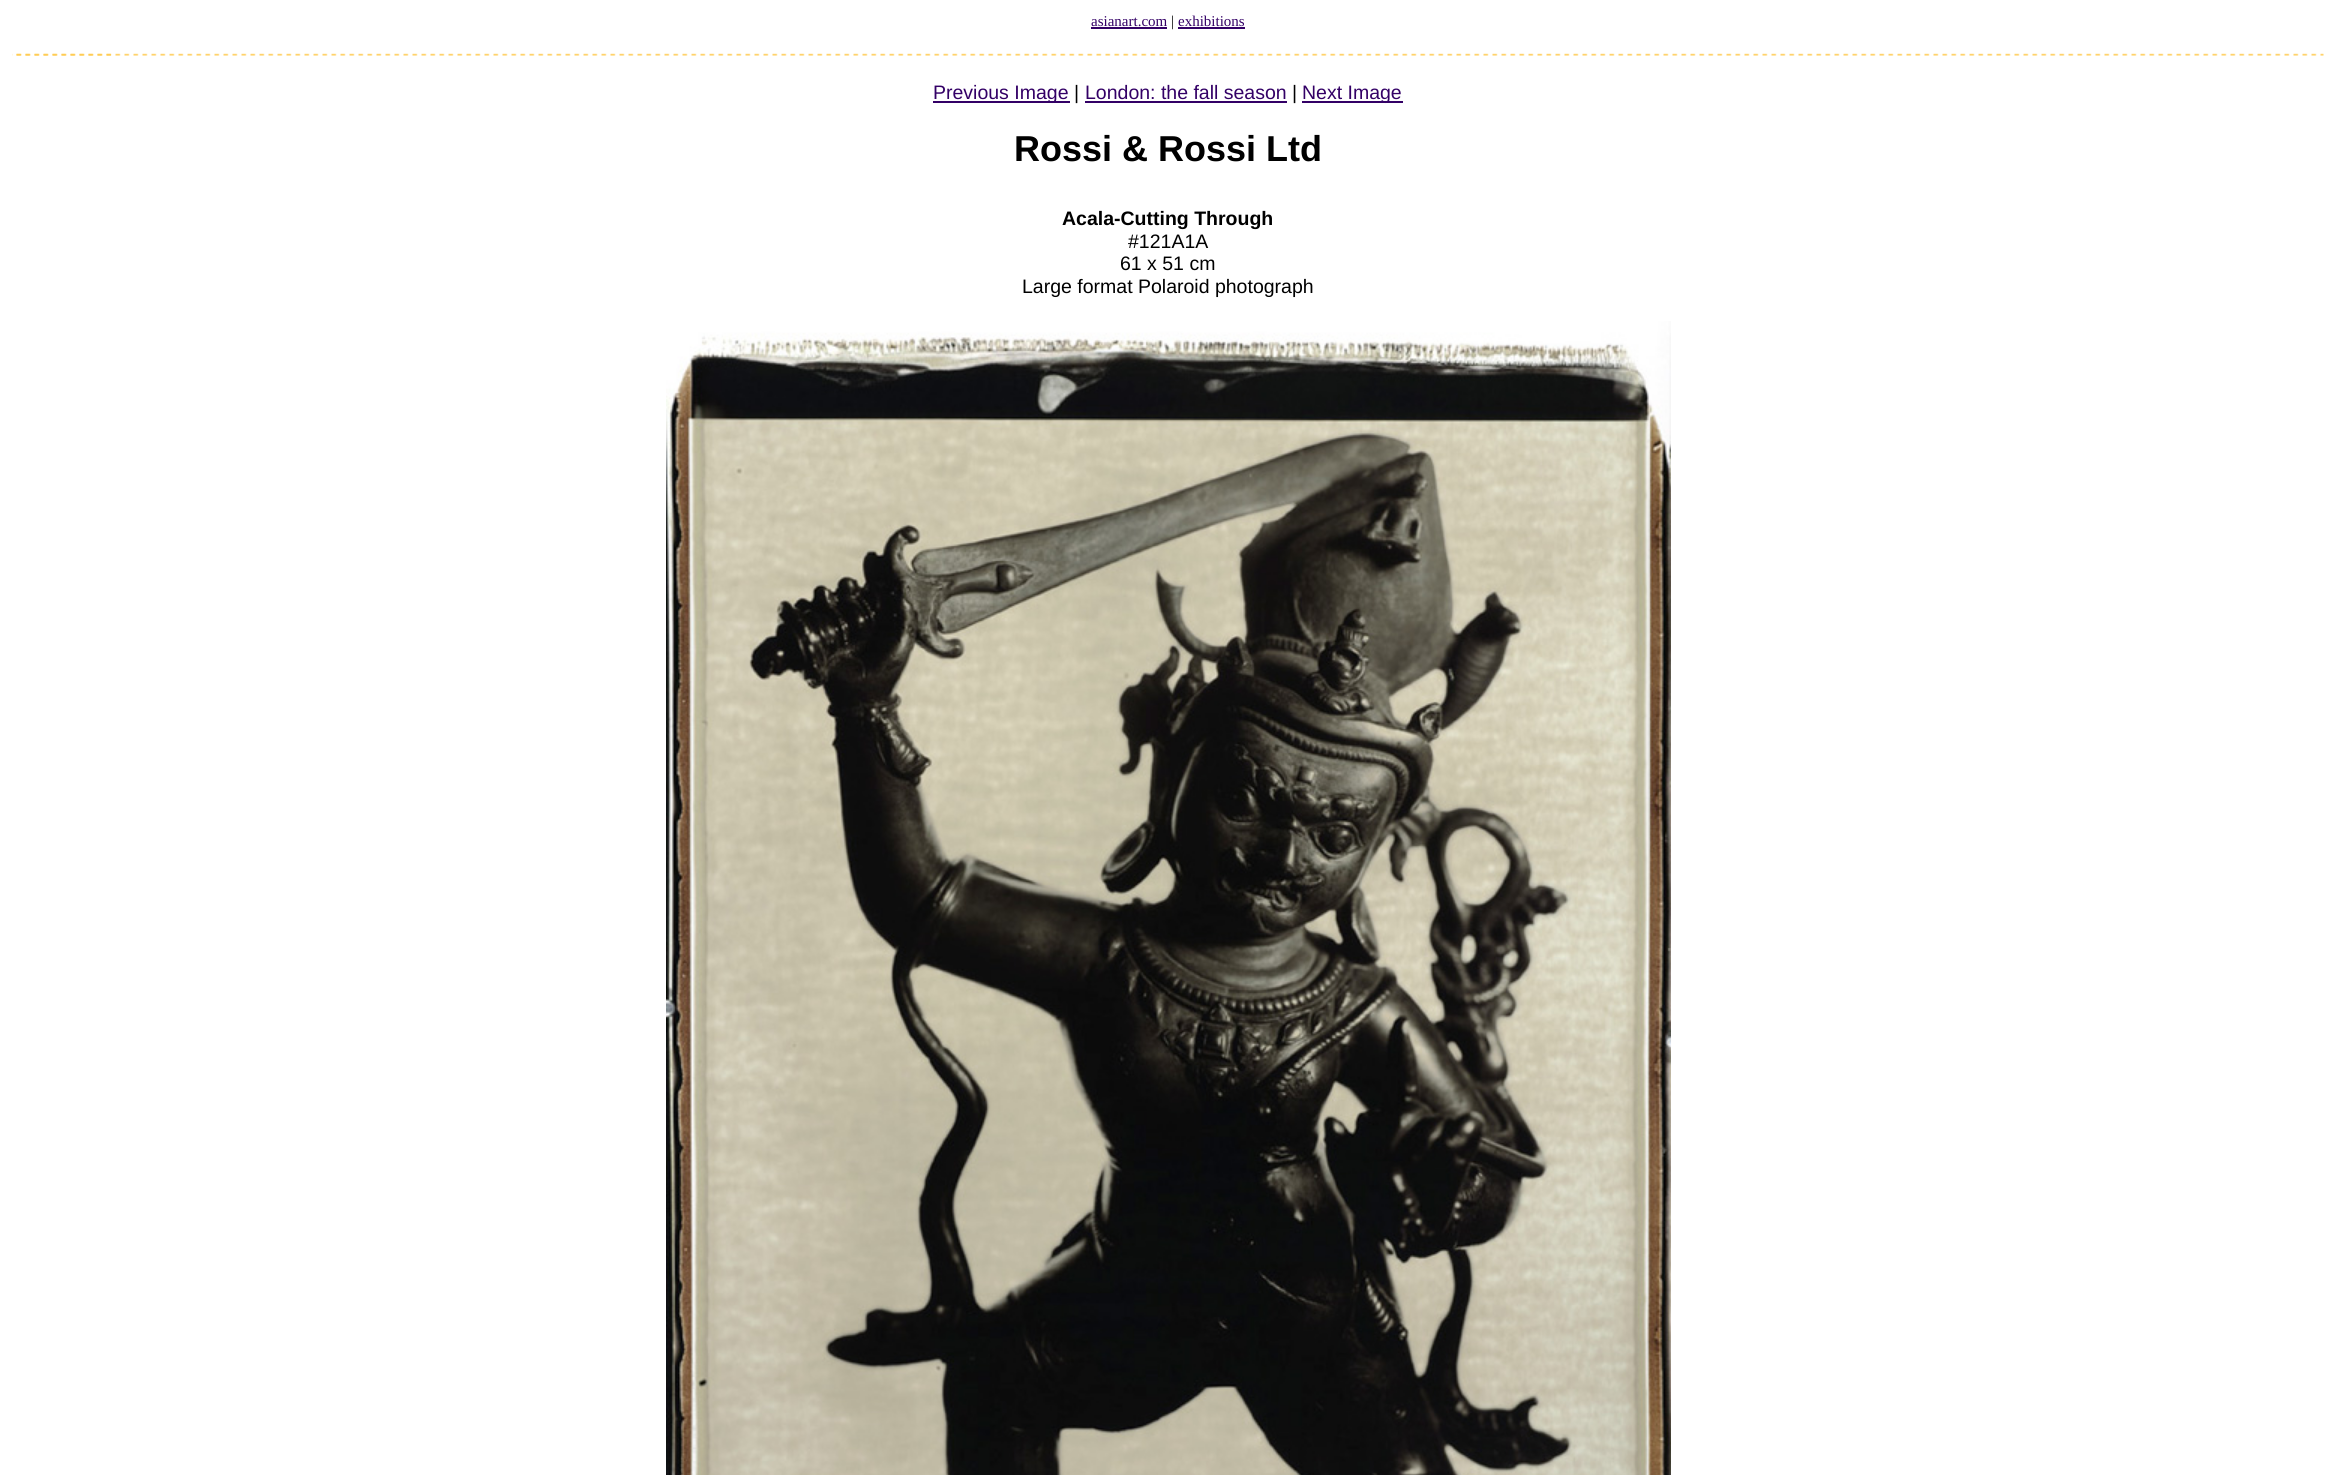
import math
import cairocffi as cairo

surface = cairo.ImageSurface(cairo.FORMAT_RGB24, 2335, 1475)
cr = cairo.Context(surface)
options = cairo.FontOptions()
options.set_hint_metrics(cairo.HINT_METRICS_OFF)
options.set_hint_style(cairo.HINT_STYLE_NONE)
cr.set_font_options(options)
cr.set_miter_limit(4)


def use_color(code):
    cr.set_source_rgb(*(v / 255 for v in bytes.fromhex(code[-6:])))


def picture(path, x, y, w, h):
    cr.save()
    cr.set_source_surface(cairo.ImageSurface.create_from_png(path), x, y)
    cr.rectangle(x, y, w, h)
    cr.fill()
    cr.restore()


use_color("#ffffff")
cr.paint()
cr.select_font_face("Liberation Serif")
cr.set_font_size(15)
use_color("#330066")
cr.move_to(1091, 26)
cr.show_text("asianart.com")
cr.rectangle(1091, 27, 76, 2)
cr.fill()
use_color("#000000")
cr.move_to(1171, 26)
cr.show_text("|")
use_color("#330066")
cr.move_to(1178, 26)
cr.show_text("exhibitions")
cr.rectangle(1178, 27, 67, 2)
cr.fill()
picture("img1.png", 12, 53, 2312, 3)
picture("img2.png", 16, 53, 95, 3)
cr.rectangle(933, 101, 137, 2)
cr.fill()
cr.select_font_face("Liberation Sans")
cr.set_font_size(19.5)
cr.move_to(933, 99)
cr.show_text("Previous Image")
use_color("#000000")
cr.move_to(1074, 99)
cr.show_text("|")
use_color("#330066")
cr.move_to(1085, 99)
cr.show_text("London: the fall season")
cr.rectangle(1085, 101, 202, 2)
cr.fill()
use_color("#000000")
cr.move_to(1292, 99)
cr.show_text("|")
use_color("#330066")
cr.rectangle(1302, 101, 101, 2)
cr.fill()
cr.move_to(1302, 99)
cr.show_text("Next Image")
cr.select_font_face("Liberation Sans", cairo.FONT_SLANT_NORMAL, cairo.FONT_WEIGHT_BOLD)
cr.set_font_size(36)
use_color("#000000")
cr.move_to(1014, 161)
cr.show_text("Rossi & Rossi Ltd")
cr.set_font_size(19.5)
cr.move_to(1062, 225)
cr.show_text("Acala-Cutting Through")
cr.select_font_face("Liberation Sans")
cr.move_to(1128, 248)
cr.show_text("#121A1A")
cr.move_to(1120, 270)
cr.show_text("61 x 51 cm")
cr.move_to(1022, 293)
cr.show_text("Large format Polaroid photograph")
picture("img3.png", 666, 321, 1005, 1154)
surface.write_to_png("result.png")
